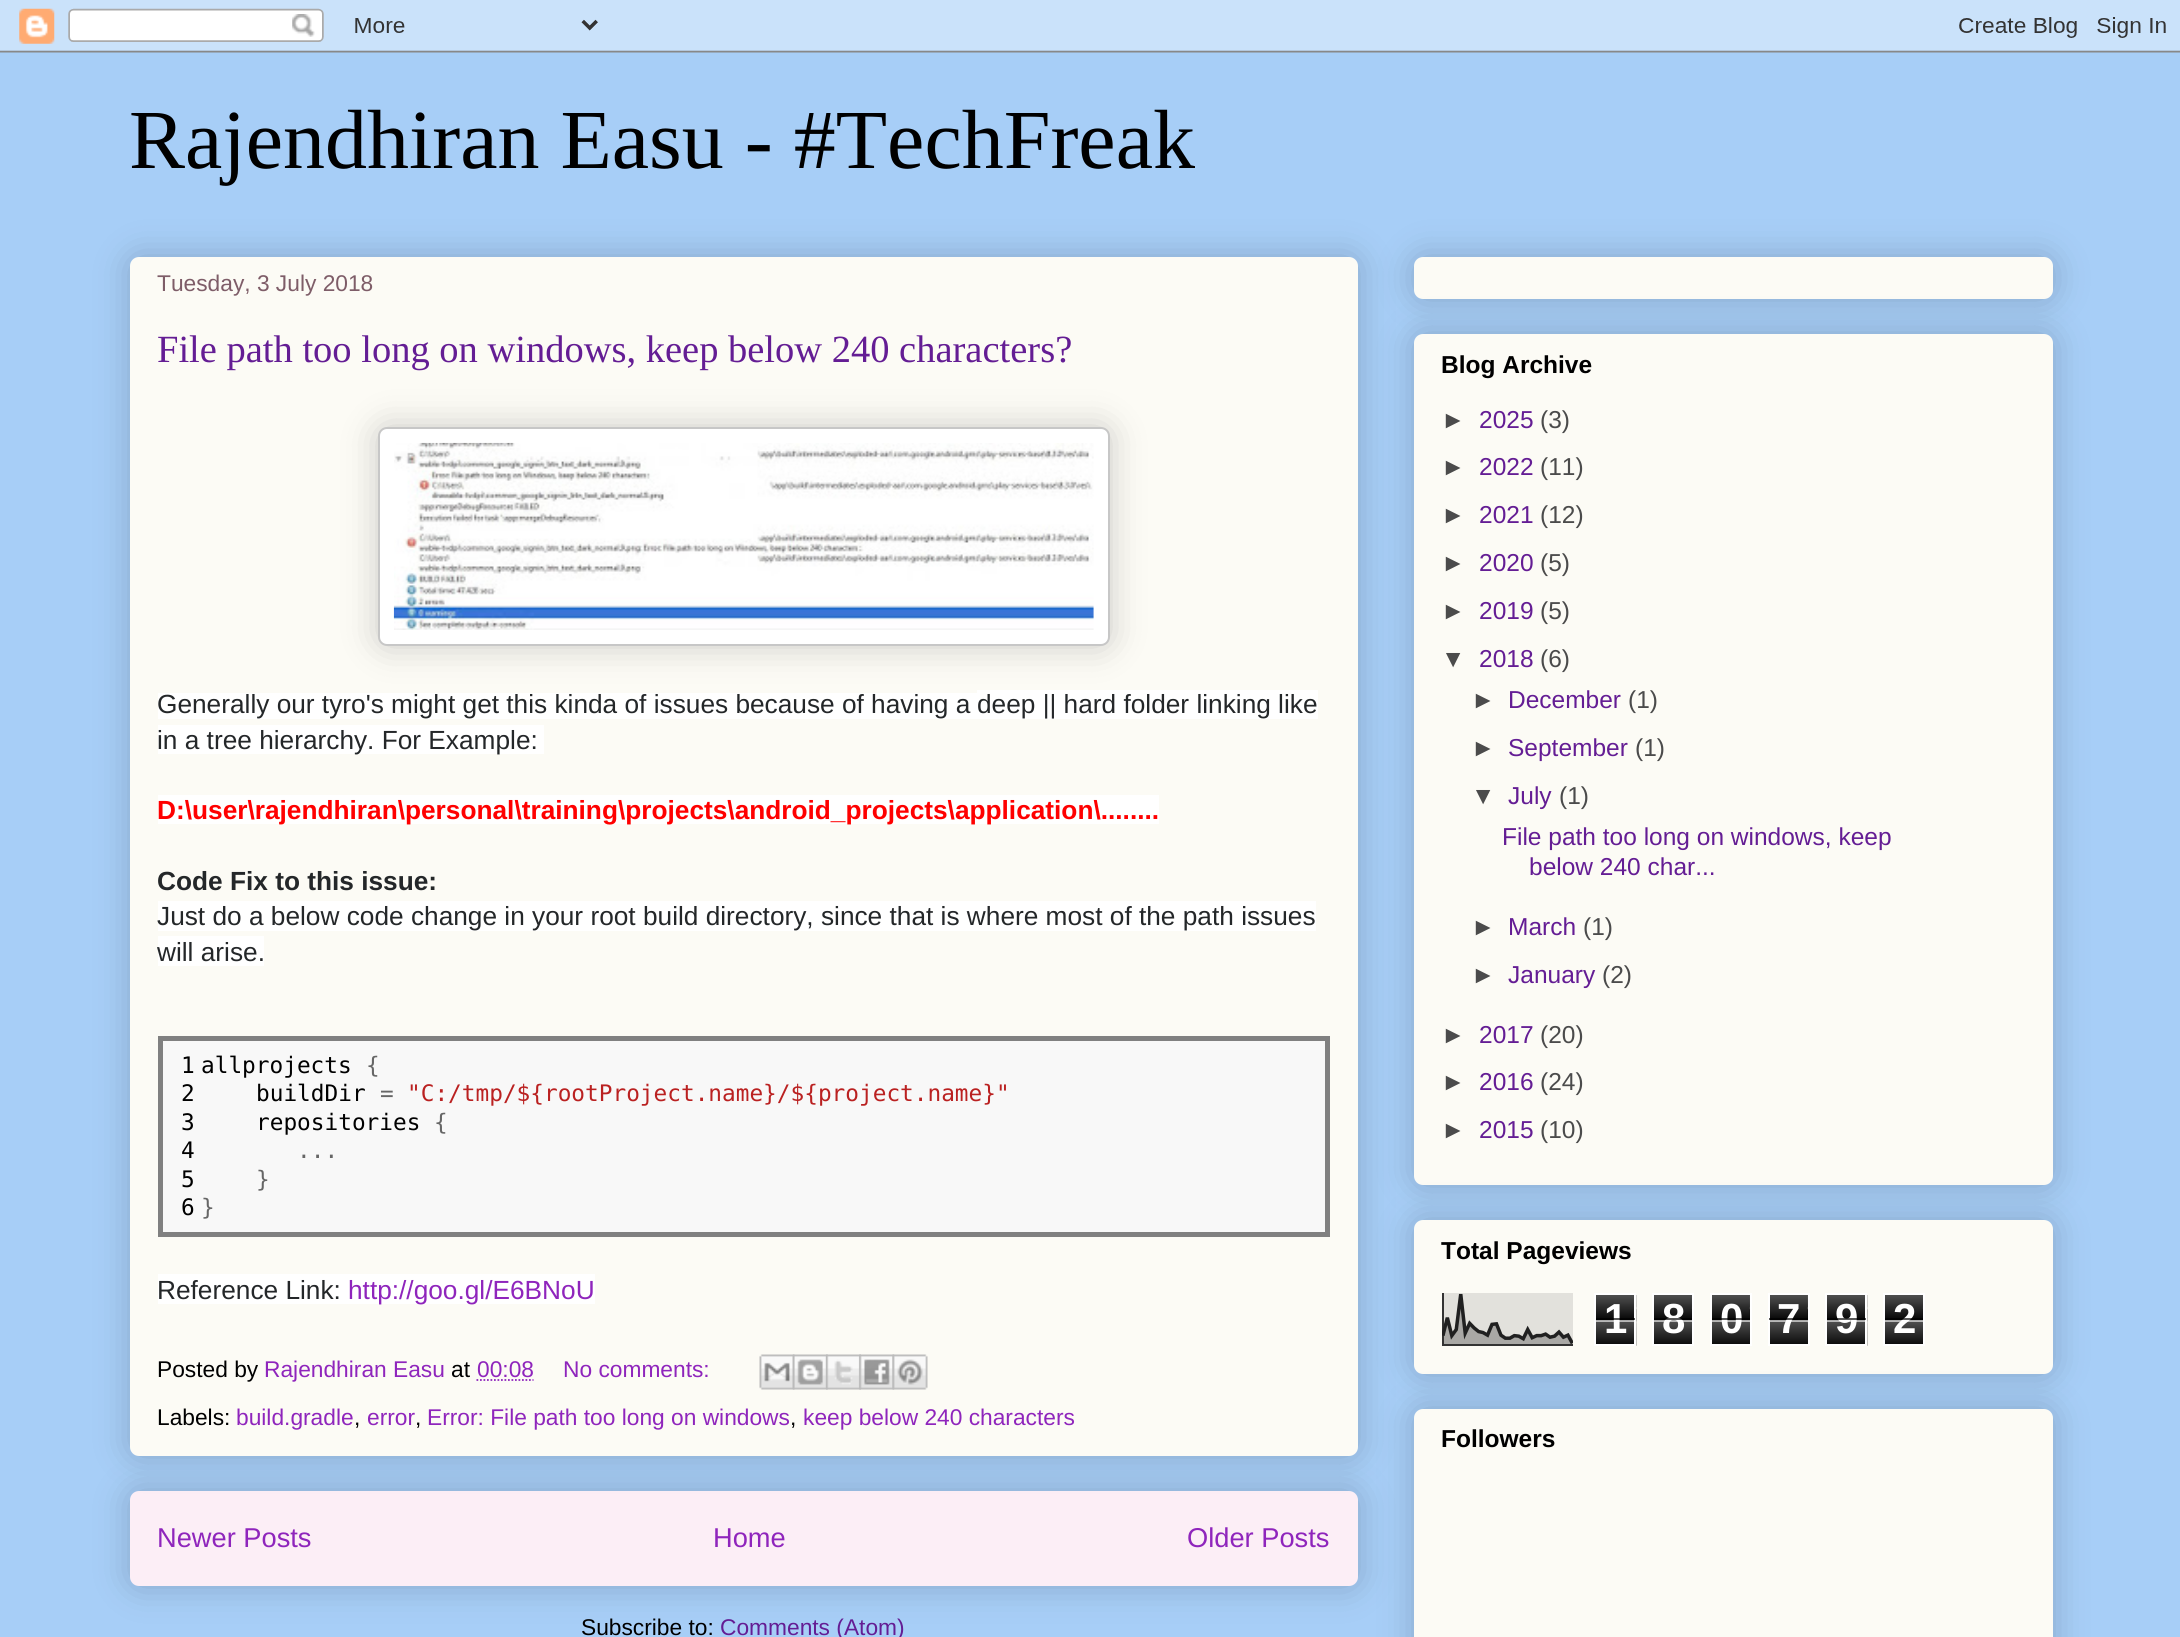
import math
import cairocffi as cairo

surface = cairo.ImageSurface(cairo.FORMAT_RGB24, 2180, 1637)
cr = cairo.Context(surface)
options = cairo.FontOptions()
options.set_hint_metrics(cairo.HINT_METRICS_OFF)
options.set_hint_style(cairo.HINT_STYLE_NONE)
cr.set_font_options(options)
cr.set_miter_limit(4)


def use_color(code):
    cr.set_source_rgb(*(v / 255 for v in bytes.fromhex(code[-6:])))


def round_rect(x, y, w, h, r):
    cr.new_sub_path()
    for i, (u, v) in enumerate([(x + w - r, y + h - r), (x + r, y + h - r), (x + r, y + r), (x + w - r, y + r)]):
        cr.arc(u, v, r, i * math.pi / 2, (i + 1) * math.pi / 2)
    cr.close_path()


def shadow(x, y, w, h, r, blur, alpha):
    cr.push_group_with_content(cairo.CONTENT_ALPHA)
    cr.set_operator(cairo.OPERATOR_SOURCE)
    for i in range(15, -16, -2):
        e = blur * i / 6
        if min(w, h) + 2 * e > 0:
            cr.set_source_rgba(0, 0, 0, alpha * math.erfc((i - 1) / 8.5) / 2)
            round_rect(x - e, y - e, w + 2 * e, h + 2 * e, max(0, min(r + e + blur * .6, min(w, h) / 2 + e)))
            cr.fill()
    cr.mask(cr.pop_group())


def picture(path, x, y, w, h):
    cr.save()
    cr.set_source_surface(cairo.ImageSurface.create_from_png(path), x, y)
    cr.rectangle(x, y, w, h)
    cr.fill()
    cr.restore()


use_color("#a7cef7")
cr.paint()
picture("img1.png", 0, 0, 2180, 53)
cr.select_font_face("Liberation Serif")
cr.set_font_size(84)
use_color("#000000")
cr.move_to(129, 168)
cr.show_text("Rajendhiran Easu - #TechFreak")
use_color("#000000")
shadow(130, 1491, 1228, 95, 9, 17.5, 0.2)
use_color("#fceef6")
round_rect(130, 1491, 1228, 95, 9)
cr.fill()
use_color("#000000")
shadow(130, 257, 1228, 1199, 9, 17.5, 0.2)
use_color("#fcfbf5")
round_rect(130, 257, 1228, 1199, 9)
cr.fill()
cr.select_font_face("Liberation Sans")
cr.set_font_size(22.75)
use_color("#7e5d68")
cr.move_to(157, 291)
cr.show_text("Tuesday, 3 July 2018")
cr.select_font_face("Liberation Serif")
cr.set_font_size(38.5)
use_color("#641d94")
cr.move_to(157, 362)
cr.show_text("File path too long on windows, keep below 240 characters?")
use_color("#ffffff")
cr.rectangle(158, 693, 819, 26)
cr.fill()
cr.rectangle(977, 690, 341, 29)
cr.fill()
use_color("#000000")
shadow(378, 427, 732, 219, 9, 17.5, 0.2)
use_color("#ffffff")
round_rect(379, 428, 730, 217, 8)
cr.fill_preserve()
use_color("#c7c7c7")
cr.stroke()
picture("img2.png", 393, 442, 701, 188)
cr.select_font_face("Liberation Sans")
cr.set_font_size(26.25)
use_color("#242729")
cr.move_to(157, 713)
cr.show_text("Generally our tyro's might get this kinda of issues because of having a")
cr.move_to(977, 713)
cr.show_text("deep || hard folder linking like")
use_color("#ffffff")
cr.rectangle(158, 725, 386, 29)
cr.fill()
use_color("#242729")
cr.move_to(157, 749)
cr.show_text("in a tree hierarchy. For Example:")
use_color("#ffffff")
cr.rectangle(158, 795, 1001, 29)
cr.fill()
cr.select_font_face("Liberation Sans", cairo.FONT_SLANT_NORMAL, cairo.FONT_WEIGHT_BOLD)
use_color("#ff0000")
cr.move_to(157, 819)
cr.show_text("D:\\user\\rajendhiran\\personal\\training\\projects\\android_projects\\application\\........")
use_color("#242729")
cr.move_to(157, 890)
cr.show_text("Code Fix to this issue:")
use_color("#ffffff")
cr.rectangle(158, 901, 1158, 30)
cr.fill()
cr.select_font_face("Liberation Sans")
use_color("#242729")
cr.move_to(157, 925)
cr.show_text("Just do a below code change in your root build directory, since that is where most of the path issues")
use_color("#ffffff")
cr.rectangle(158, 936, 106, 30)
cr.fill()
use_color("#242729")
cr.move_to(157, 961)
cr.show_text("will arise.")
use_color("#f8f8f8")
cr.rectangle(160.5, 1038.5, 1167, 196)
cr.fill_preserve()
use_color("#808080")
cr.set_line_width(5)
cr.stroke()
cr.select_font_face("DejaVu Sans Mono")
cr.set_font_size(22.75)
use_color("#000000")
cr.move_to(181, 1073)
cr.show_text("1")
cr.move_to(181, 1101)
cr.show_text("2")
cr.move_to(181, 1130)
cr.show_text("3")
cr.move_to(181, 1158)
cr.show_text("4")
cr.move_to(181, 1187)
cr.show_text("5")
cr.move_to(181, 1215)
cr.show_text("6")
cr.move_to(201, 1073)
cr.show_text("allprojects")
use_color("#666666")
cr.move_to(366, 1073)
cr.show_text("{")
use_color("#000000")
cr.move_to(256, 1101)
cr.show_text("buildDir")
use_color("#666666")
cr.move_to(380, 1101)
cr.show_text("=")
use_color("#ba2121")
cr.move_to(407, 1101)
cr.show_text("\"C:/tmp/${rootProject.name}/${project.name}\"")
use_color("#000000")
cr.move_to(256, 1130)
cr.show_text("repositories")
use_color("#666666")
cr.move_to(434, 1130)
cr.show_text("{")
cr.move_to(297, 1158)
cr.show_text("...")
cr.move_to(256, 1187)
cr.show_text("}")
cr.move_to(201, 1215)
cr.show_text("}")
use_color("#ffffff")
cr.rectangle(158, 1274, 437, 30)
cr.fill()
cr.select_font_face("Liberation Sans")
cr.set_font_size(26.25)
use_color("#242729")
cr.move_to(157, 1299)
cr.show_text("Reference Link:")
use_color("#8f25bc")
cr.move_to(348, 1299)
cr.show_text("http://goo.gl/E6BNoU")
cr.set_font_size(22.75)
use_color("#000000")
cr.move_to(157, 1377)
cr.show_text("Posted by")
use_color("#8f25bc")
cr.move_to(264, 1377)
cr.show_text("Rajendhiran Easu")
use_color("#000000")
cr.move_to(451, 1377)
cr.show_text("at")
use_color("#8f25bc")
cr.move_to(477, 1377)
cr.show_text("00:08")
cr.new_path()
cr.move_to(476.5, 1380)
cr.line_to(533.5, 1380)
cr.set_line_width(1.8)
cr.set_dash([1.75, 1.75])
cr.stroke()
cr.move_to(563, 1377)
cr.show_text("No comments:")
picture("img3.png", 759, 1354, 36, 36)
picture("img4.png", 792, 1354, 36, 36)
picture("img5.png", 826, 1354, 35, 36)
picture("img6.png", 859, 1354, 36, 36)
picture("img7.png", 892, 1354, 36, 36)
use_color("#000000")
cr.move_to(157, 1425)
cr.show_text("Labels:")
use_color("#8f25bc")
cr.move_to(236, 1425)
cr.show_text("build.gradle")
use_color("#000000")
cr.move_to(354, 1425)
cr.show_text(",")
use_color("#8f25bc")
cr.move_to(367, 1425)
cr.show_text("error")
use_color("#000000")
cr.move_to(415, 1425)
cr.show_text(",")
use_color("#8f25bc")
cr.move_to(427, 1425)
cr.show_text("Error: File path too long on windows")
use_color("#000000")
cr.move_to(790, 1425)
cr.show_text(",")
use_color("#8f25bc")
cr.move_to(803, 1425)
cr.show_text("keep below 240 characters")
cr.set_font_size(27.25)
cr.move_to(157, 1547)
cr.show_text("Newer Posts")
cr.move_to(713, 1547)
cr.show_text("Home")
cr.move_to(1187, 1547)
cr.show_text("Older Posts")
cr.set_font_size(22.75)
use_color("#000000")
cr.move_to(581, 1635)
cr.show_text("Subscribe to:")
use_color("#641d94")
cr.move_to(720, 1635)
cr.show_text("Comments (Atom)")
use_color("#000000")
shadow(1414, 257, 639, 42, 9, 17.5, 0.2)
use_color("#fcfbf5")
round_rect(1414, 257, 639, 42, 9)
cr.fill()
use_color("#000000")
shadow(1414, 334, 639, 851, 9, 17.5, 0.2)
use_color("#fcfbf5")
round_rect(1414, 334, 639, 851, 9)
cr.fill()
cr.select_font_face("Liberation Sans", cairo.FONT_SLANT_NORMAL, cairo.FONT_WEIGHT_BOLD)
cr.set_font_size(24.5)
use_color("#000000")
cr.move_to(1441, 373)
cr.show_text("Blog Archive")
cr.select_font_face("Liberation Sans")
use_color("#4b4b4b")
cr.move_to(1441, 428)
cr.show_text("►")
use_color("#641d94")
cr.move_to(1479, 428)
cr.show_text("2025")
use_color("#4b4b4b")
cr.move_to(1540, 428)
cr.show_text("(3)")
cr.move_to(1441, 475)
cr.show_text("►")
use_color("#641d94")
cr.move_to(1479, 475)
cr.show_text("2022")
use_color("#4b4b4b")
cr.move_to(1540, 475)
cr.show_text("(11)")
cr.move_to(1441, 523)
cr.show_text("►")
use_color("#641d94")
cr.move_to(1479, 523)
cr.show_text("2021")
use_color("#4b4b4b")
cr.move_to(1540, 523)
cr.show_text("(12)")
cr.move_to(1441, 571)
cr.show_text("►")
use_color("#641d94")
cr.move_to(1479, 571)
cr.show_text("2020")
use_color("#4b4b4b")
cr.move_to(1540, 571)
cr.show_text("(5)")
cr.move_to(1441, 619)
cr.show_text("►")
use_color("#641d94")
cr.move_to(1479, 619)
cr.show_text("2019")
use_color("#4b4b4b")
cr.move_to(1540, 619)
cr.show_text("(5)")
cr.move_to(1441, 667)
cr.show_text("▼")
use_color("#641d94")
cr.move_to(1479, 667)
cr.show_text("2018")
use_color("#4b4b4b")
cr.move_to(1540, 667)
cr.show_text("(6)")
cr.move_to(1471, 708)
cr.show_text("►")
use_color("#641d94")
cr.move_to(1508, 708)
cr.show_text("December")
use_color("#4b4b4b")
cr.move_to(1628, 708)
cr.show_text("(1)")
cr.move_to(1471, 756)
cr.show_text("►")
use_color("#641d94")
cr.move_to(1508, 756)
cr.show_text("September")
use_color("#4b4b4b")
cr.move_to(1635, 756)
cr.show_text("(1)")
cr.move_to(1471, 804)
cr.show_text("▼")
use_color("#641d94")
cr.move_to(1508, 804)
cr.show_text("July")
use_color("#4b4b4b")
cr.move_to(1559, 804)
cr.show_text("(1)")
use_color("#641d94")
cr.move_to(1502, 845)
cr.show_text("File path too long on windows, keep")
cr.move_to(1529, 875)
cr.show_text("below 240 char...")
use_color("#4b4b4b")
cr.move_to(1471, 935)
cr.show_text("►")
use_color("#641d94")
cr.move_to(1508, 935)
cr.show_text("March")
use_color("#4b4b4b")
cr.move_to(1583, 935)
cr.show_text("(1)")
cr.move_to(1471, 983)
cr.show_text("►")
use_color("#641d94")
cr.move_to(1508, 983)
cr.show_text("January")
use_color("#4b4b4b")
cr.move_to(1602, 983)
cr.show_text("(2)")
cr.move_to(1441, 1043)
cr.show_text("►")
use_color("#641d94")
cr.move_to(1479, 1043)
cr.show_text("2017")
use_color("#4b4b4b")
cr.move_to(1540, 1043)
cr.show_text("(20)")
cr.move_to(1441, 1090)
cr.show_text("►")
use_color("#641d94")
cr.move_to(1479, 1090)
cr.show_text("2016")
use_color("#4b4b4b")
cr.move_to(1540, 1090)
cr.show_text("(24)")
cr.move_to(1441, 1138)
cr.show_text("►")
use_color("#641d94")
cr.move_to(1479, 1138)
cr.show_text("2015")
use_color("#4b4b4b")
cr.move_to(1540, 1138)
cr.show_text("(10)")
use_color("#000000")
shadow(1414, 1220, 639, 154, 9, 17.5, 0.2)
use_color("#fcfbf5")
round_rect(1414, 1220, 639, 154, 9)
cr.fill()
cr.select_font_face("Liberation Sans", cairo.FONT_SLANT_NORMAL, cairo.FONT_WEIGHT_BOLD)
use_color("#000000")
cr.move_to(1441, 1259)
cr.show_text("Total Pageviews")
picture("img8.png", 1442, 1293, 131, 53)
picture("img9.png", 1596, 1295, 41, 51)
cr.rectangle(1595, 1294, 40, 51)
use_color("#ffffff")
cr.set_line_width(2)
cr.set_dash([])
cr.stroke()
cr.set_font_size(42)
cr.move_to(1604, 1333)
cr.show_text("1")
cr.set_source_rgba(0, 0, 0, 0.65)
cr.rectangle(1596, 1318, 39, 2)
cr.fill()
cr.set_source_rgba(1, 1, 1, 0.65)
cr.rectangle(1596, 1320, 39, 2)
cr.fill()
picture("img10.png", 1654, 1295, 38, 49)
cr.rectangle(1653, 1294, 40, 51)
use_color("#ffffff")
cr.stroke()
cr.move_to(1662, 1333)
cr.show_text("8")
cr.set_source_rgba(0, 0, 0, 0.65)
cr.rectangle(1654, 1318, 38, 2)
cr.fill()
cr.set_source_rgba(1, 1, 1, 0.65)
cr.rectangle(1654, 1320, 38, 2)
cr.fill()
picture("img11.png", 1712, 1295, 38, 49)
cr.rectangle(1711, 1294, 40, 51)
use_color("#ffffff")
cr.stroke()
cr.move_to(1720, 1333)
cr.show_text("0")
cr.set_source_rgba(0, 0, 0, 0.65)
cr.rectangle(1712, 1318, 38, 2)
cr.fill()
cr.set_source_rgba(1, 1, 1, 0.65)
cr.rectangle(1712, 1320, 38, 2)
cr.fill()
picture("img12.png", 1770, 1295, 38, 49)
cr.rectangle(1769, 1294, 40, 51)
use_color("#ffffff")
cr.stroke()
cr.move_to(1777, 1333)
cr.show_text("7")
cr.set_source_rgba(0, 0, 0, 0.65)
cr.rectangle(1769, 1318, 39, 2)
cr.fill()
cr.set_source_rgba(1, 1, 1, 0.65)
cr.rectangle(1769, 1320, 39, 2)
cr.fill()
picture("img9.png", 1827, 1295, 41, 51)
cr.rectangle(1826, 1294, 40, 51)
use_color("#ffffff")
cr.stroke()
cr.move_to(1835, 1333)
cr.show_text("9")
cr.set_source_rgba(0, 0, 0, 0.65)
cr.rectangle(1827, 1318, 39, 2)
cr.fill()
cr.set_source_rgba(1, 1, 1, 0.65)
cr.rectangle(1827, 1320, 39, 2)
cr.fill()
picture("img10.png", 1885, 1295, 38, 49)
cr.rectangle(1884, 1294, 40, 51)
use_color("#ffffff")
cr.stroke()
cr.move_to(1893, 1333)
cr.show_text("2")
cr.set_source_rgba(0, 0, 0, 0.65)
cr.rectangle(1885, 1318, 38, 2)
cr.fill()
cr.set_source_rgba(1, 1, 1, 0.65)
cr.rectangle(1885, 1320, 38, 2)
cr.fill()
use_color("#000000")
shadow(1414, 1409, 639, 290, 9, 17.5, 0.2)
use_color("#fcfbf5")
round_rect(1414, 1409, 639, 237, 9)
cr.fill()
cr.set_font_size(24.5)
use_color("#000000")
cr.move_to(1441, 1447)
cr.show_text("Followers")
surface.write_to_png("result.png")
